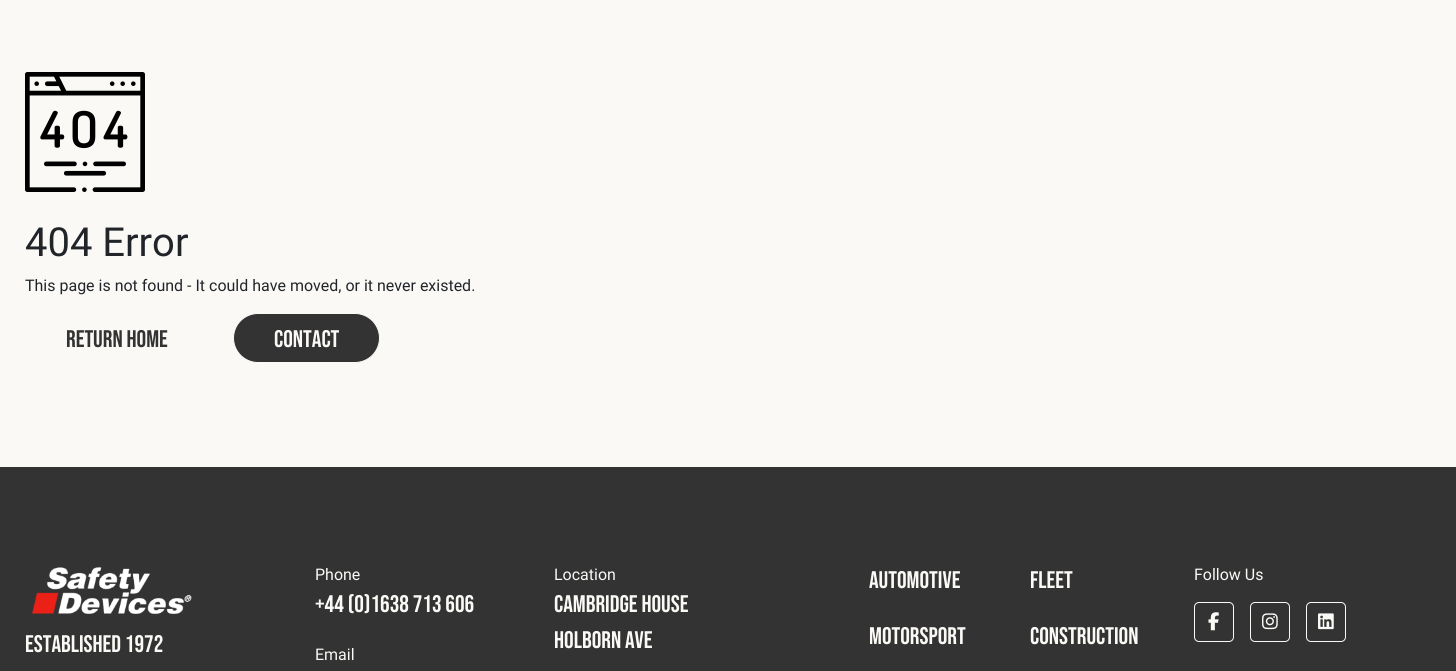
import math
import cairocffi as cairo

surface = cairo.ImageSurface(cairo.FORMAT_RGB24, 1456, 671)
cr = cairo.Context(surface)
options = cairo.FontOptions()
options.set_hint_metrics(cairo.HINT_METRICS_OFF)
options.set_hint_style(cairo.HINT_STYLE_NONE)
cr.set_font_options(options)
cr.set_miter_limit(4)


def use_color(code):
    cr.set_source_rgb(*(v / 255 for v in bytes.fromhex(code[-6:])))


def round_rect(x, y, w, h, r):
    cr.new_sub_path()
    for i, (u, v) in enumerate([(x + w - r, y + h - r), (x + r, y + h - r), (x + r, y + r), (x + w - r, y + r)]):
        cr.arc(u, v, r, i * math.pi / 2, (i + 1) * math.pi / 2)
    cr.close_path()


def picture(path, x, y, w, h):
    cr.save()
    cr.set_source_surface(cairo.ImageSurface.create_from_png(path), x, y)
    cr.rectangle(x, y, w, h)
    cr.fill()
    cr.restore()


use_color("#faf9f6")
cr.paint()
picture("img1.png", 25, 72, 120, 120)
cr.select_font_face("Roboto")
cr.set_font_size(40)
use_color("#212529")
cr.move_to(25, 256)
cr.show_text("404 Error")
cr.set_font_size(16)
cr.move_to(25, 291)
cr.show_text("This page is not found - It could have moved, or it never existed.")
cr.select_font_face("Bebas Neue")
cr.set_font_size(24)
use_color("#333333")
cr.move_to(66, 347)
cr.show_text("Return Home")
round_rect(233.5, 313.5, 146, 49, 24.5)
cr.fill_preserve()
use_color("#faf9f6")
cr.set_line_width(1)
cr.stroke()
cr.move_to(274, 347)
cr.show_text("Contact")
use_color("#333333")
cr.rectangle(0, 467, 1456, 204)
cr.fill()
picture("img2.png", 32, 567, 160, 47)
use_color("#faf9f6")
cr.move_to(25, 652)
cr.show_text("ESTABLISHED 1972")
cr.select_font_face("Roboto")
cr.set_font_size(16)
cr.move_to(315, 580)
cr.show_text("Phone")
cr.select_font_face("Bebas Neue")
cr.set_font_size(24)
cr.move_to(315, 612)
cr.show_text("+44 (0)1638 713 606")
cr.select_font_face("Roboto")
cr.set_font_size(16)
cr.move_to(554, 580)
cr.show_text("Location")
cr.select_font_face("Bebas Neue")
cr.set_font_size(24)
cr.move_to(554, 612)
cr.show_text("Cambridge House")
cr.move_to(554, 648)
cr.show_text("Holborn Ave")
cr.select_font_face("Roboto")
cr.set_font_size(16)
cr.move_to(315, 660)
cr.show_text("Email")
cr.select_font_face("Bebas Neue")
cr.set_font_size(24)
cr.move_to(869, 588)
cr.show_text("AUTOMOTIVE")
cr.move_to(1030, 588)
cr.show_text("FLEET")
cr.move_to(869, 644)
cr.show_text("MOTORSPORT")
cr.move_to(1030, 644)
cr.show_text("CONSTRUCTION")
cr.select_font_face("Roboto")
cr.set_font_size(16)
cr.move_to(1194, 580)
cr.show_text("Follow Us")
round_rect(1194.5, 602.5, 39, 39, 4.5)
cr.stroke()
picture("img3.png", 1208, 612, 11, 19)
round_rect(1250.5, 602.5, 39, 39, 4.5)
cr.stroke()
picture("img4.png", 1262, 613, 16, 17)
round_rect(1306.5, 602.5, 39, 39, 4.5)
cr.stroke()
picture("img5.png", 1318, 613, 16, 17)
surface.write_to_png("result.png")
